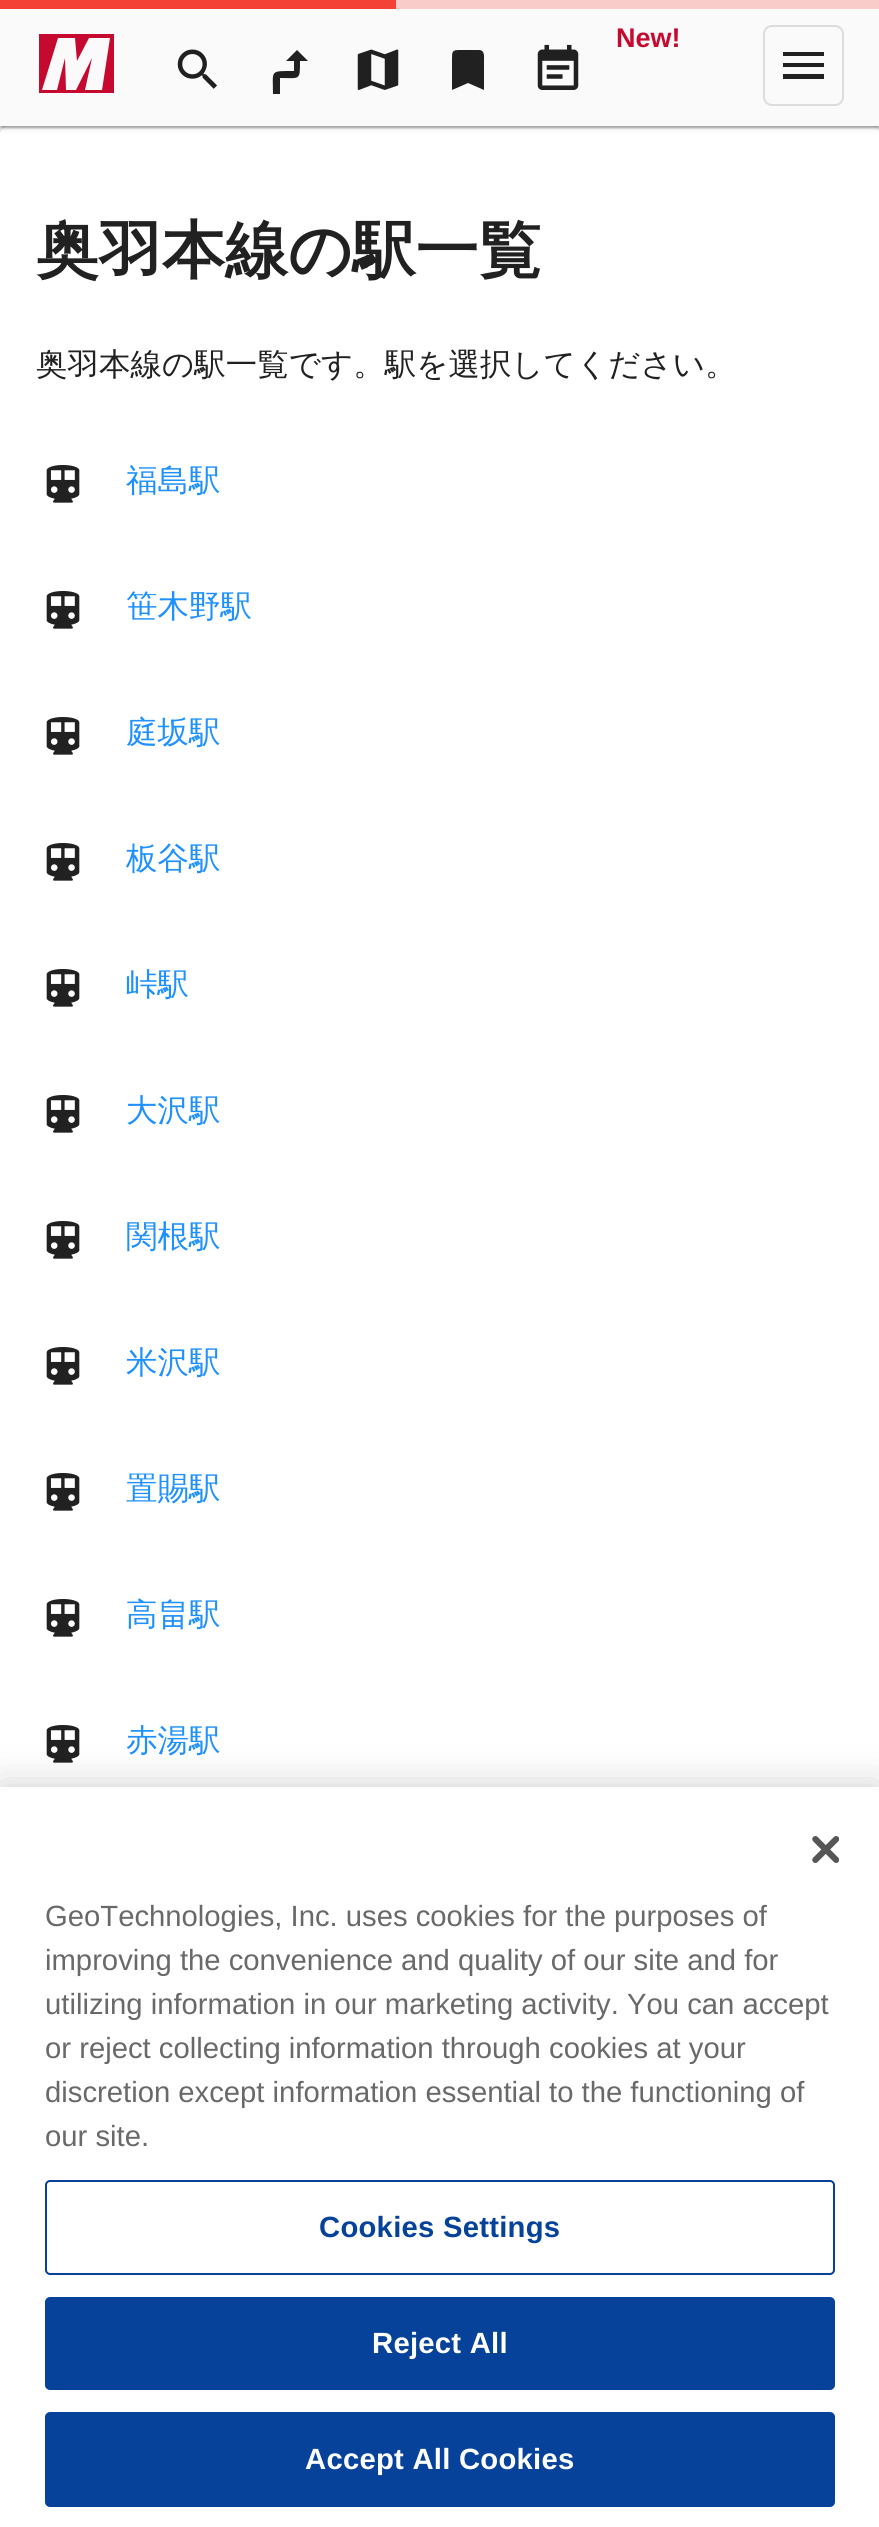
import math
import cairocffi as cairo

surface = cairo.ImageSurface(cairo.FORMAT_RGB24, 879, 2527)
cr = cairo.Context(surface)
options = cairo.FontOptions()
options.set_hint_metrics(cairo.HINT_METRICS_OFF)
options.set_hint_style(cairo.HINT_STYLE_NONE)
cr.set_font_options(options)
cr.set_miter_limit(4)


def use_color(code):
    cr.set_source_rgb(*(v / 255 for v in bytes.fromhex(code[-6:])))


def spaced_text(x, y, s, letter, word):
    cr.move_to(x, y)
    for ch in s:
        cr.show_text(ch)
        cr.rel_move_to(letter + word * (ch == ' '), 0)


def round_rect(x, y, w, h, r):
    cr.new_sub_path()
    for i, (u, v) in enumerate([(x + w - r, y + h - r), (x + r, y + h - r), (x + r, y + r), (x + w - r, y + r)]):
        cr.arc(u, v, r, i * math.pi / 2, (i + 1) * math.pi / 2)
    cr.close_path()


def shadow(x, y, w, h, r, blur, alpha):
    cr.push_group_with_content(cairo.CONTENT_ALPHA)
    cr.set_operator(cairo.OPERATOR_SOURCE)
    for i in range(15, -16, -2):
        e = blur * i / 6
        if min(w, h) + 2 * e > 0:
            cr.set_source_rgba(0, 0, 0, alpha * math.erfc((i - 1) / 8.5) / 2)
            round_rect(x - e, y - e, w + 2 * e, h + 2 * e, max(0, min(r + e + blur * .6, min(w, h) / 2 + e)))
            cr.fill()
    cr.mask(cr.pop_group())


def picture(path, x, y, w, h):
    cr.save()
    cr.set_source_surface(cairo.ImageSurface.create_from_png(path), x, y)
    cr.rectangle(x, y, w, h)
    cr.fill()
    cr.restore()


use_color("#f1f1f1")
cr.paint()
use_color("#000000")
shadow(0, 128, 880, 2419, 9, 3.5, 0.12)
use_color("#ffffff")
round_rect(0, 126, 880, 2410, 9)
cr.fill()
use_color("#000000")
shadow(0, 2, 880, 126, 0, 3.5, 0.12)
shadow(0, 2, 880, 126, 0, 1, 0.14)
shadow(2, 7, 876, 121, 0, 1, 0.2)
use_color("#f44336")
cr.rectangle(0, 0, 396, 9)
cr.fill()
use_color("#f9ccc9")
cr.rectangle(396, 0, 483, 9)
cr.fill()
use_color("#fafafa")
cr.rectangle(0, 9, 879, 117)
cr.fill()
use_color("#c5092f")
cr.new_path()
cr.move_to(39, 34)
cr.line_to(39, 93)
cr.line_to(114, 93)
cr.line_to(114, 34)
cr.close_path()
cr.move_to(102, 90)
cr.line_to(85, 90)
cr.line_to(92, 58)
cr.line_to(76, 90)
cr.line_to(66, 90)
cr.line_to(65, 58)
cr.line_to(57, 90)
cr.line_to(42, 90)
cr.line_to(58, 38)
cr.line_to(75, 38)
cr.line_to(77, 61)
cr.line_to(89, 38)
cr.line_to(110, 38)
cr.close_path()
cr.fill()
picture("img1.png", 177, 49, 40, 40)
use_color("#212121")
cr.new_path()
cr.move_to(297, 50)
cr.line_to(286, 61)
cr.line_to(294, 61)
cr.line_to(294, 71)
cr.curve_to(269, 71, 273, 70, 273, 94)
cr.line_to(280, 94)
cr.line_to(280, 78)
cr.curve_to(300, 78, 300, 81, 300, 61)
cr.line_to(308, 61)
cr.close_path()
cr.fill()
picture("img2.png", 357, 49, 42, 41)
cr.new_path()
cr.move_to(479, 50)
cr.curve_to(485, 50, 484, 57, 484, 60)
cr.line_to(484, 90)
cr.line_to(468, 83)
cr.line_to(452, 90)
cr.line_to(452, 60)
cr.curve_to(452, 51, 452, 50, 460, 50)
cr.close_path()
cr.fill()
picture("img3.png", 537, 44, 42, 46)
cr.select_font_face("Liberation Sans", cairo.FONT_SLANT_NORMAL, cairo.FONT_WEIGHT_BOLD)
cr.set_font_size(27)
use_color("#c5092f")
cr.move_to(616, 47)
cr.show_text("New!")
round_rect(764, 26, 79, 79, 8)
use_color("#dcdcdc")
cr.stroke()
use_color("#212121")
cr.new_path()
cr.move_to(783, 52)
cr.line_to(824, 52)
cr.line_to(824, 56)
cr.line_to(783, 56)
cr.close_path()
cr.move_to(783, 67)
cr.line_to(783, 63)
cr.line_to(824, 63)
cr.line_to(824, 67)
cr.close_path()
cr.move_to(783, 79)
cr.line_to(783, 74)
cr.line_to(824, 74)
cr.line_to(824, 79)
cr.close_path()
cr.fill()
cr.select_font_face("WenQuanYi Zen Hei", cairo.FONT_SLANT_NORMAL, cairo.FONT_WEIGHT_BOLD)
cr.set_font_size(63)
cr.move_to(36, 272)
cr.show_text("奥羽本線の駅一覧")
cr.select_font_face("WenQuanYi Zen Hei Medium")
cr.set_font_size(31.5)
cr.move_to(36, 375)
cr.show_text("奥羽本線の駅一覧です。駅を選択してください。")
picture("img4.png", 46, 465, 34, 38)
use_color("#1e90ff")
cr.move_to(126, 491)
cr.show_text("福島駅")
picture("img4.png", 46, 591, 34, 38)
cr.move_to(126, 617)
cr.show_text("笹木野駅")
picture("img4.png", 46, 717, 34, 38)
cr.move_to(126, 743)
cr.show_text("庭坂駅")
picture("img4.png", 46, 843, 34, 38)
cr.move_to(126, 869)
cr.show_text("板谷駅")
picture("img4.png", 46, 969, 34, 38)
cr.move_to(126, 995)
cr.show_text("峠駅")
picture("img4.png", 46, 1095, 34, 38)
cr.move_to(126, 1121)
cr.show_text("大沢駅")
picture("img4.png", 46, 1221, 34, 38)
cr.move_to(126, 1247)
cr.show_text("関根駅")
picture("img4.png", 46, 1347, 34, 38)
cr.move_to(126, 1373)
cr.show_text("米沢駅")
picture("img4.png", 46, 1473, 34, 38)
cr.move_to(126, 1499)
cr.show_text("置賜駅")
picture("img4.png", 46, 1599, 34, 38)
cr.move_to(126, 1625)
cr.show_text("高畠駅")
picture("img4.png", 46, 1725, 34, 38)
cr.move_to(126, 1751)
cr.show_text("赤湯駅")
use_color("#000000")
shadow(0, 1787, 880, 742, 0, 20, 0.2)
use_color("#ffffff")
cr.rectangle(0, 1787, 879, 740)
cr.fill()
picture("img5.png", 812, 1836, 27, 27)
cr.select_font_face("Liberation Sans")
cr.set_font_size(29.25)
use_color("#696969")
cr.move_to(45, 1926)
cr.show_text("GeoTechnologies, Inc. uses cookies for the purposes of")
cr.move_to(45, 1970)
cr.show_text("improving the convenience and quality of our site and for")
cr.move_to(45, 2014)
cr.show_text("utilizing information in our marketing activity. You can accept")
cr.move_to(45, 2058)
cr.show_text("or reject collecting information through cookies at your")
cr.move_to(45, 2102)
cr.show_text("discretion except information essential to the functioning of")
cr.move_to(45, 2146)
cr.show_text("our site.")
round_rect(46, 2181, 788, 93, 4)
use_color("#06429a")
cr.stroke()
cr.select_font_face("Liberation Sans", cairo.FONT_SLANT_NORMAL, cairo.FONT_WEIGHT_BOLD)
spaced_text(319, 2237, "Cookies Settings", 0.25, 0)
round_rect(46, 2298, 788, 91, 4)
cr.fill_preserve()
cr.stroke()
use_color("#ffffff")
spaced_text(372, 2353, "Reject All", 0.25, 0)
use_color("#06429a")
round_rect(46, 2413, 788, 93, 4)
cr.fill_preserve()
cr.stroke()
use_color("#ffffff")
spaced_text(305, 2469, "Accept All Cookies", 0.25, 0)
surface.write_to_png("result.png")
